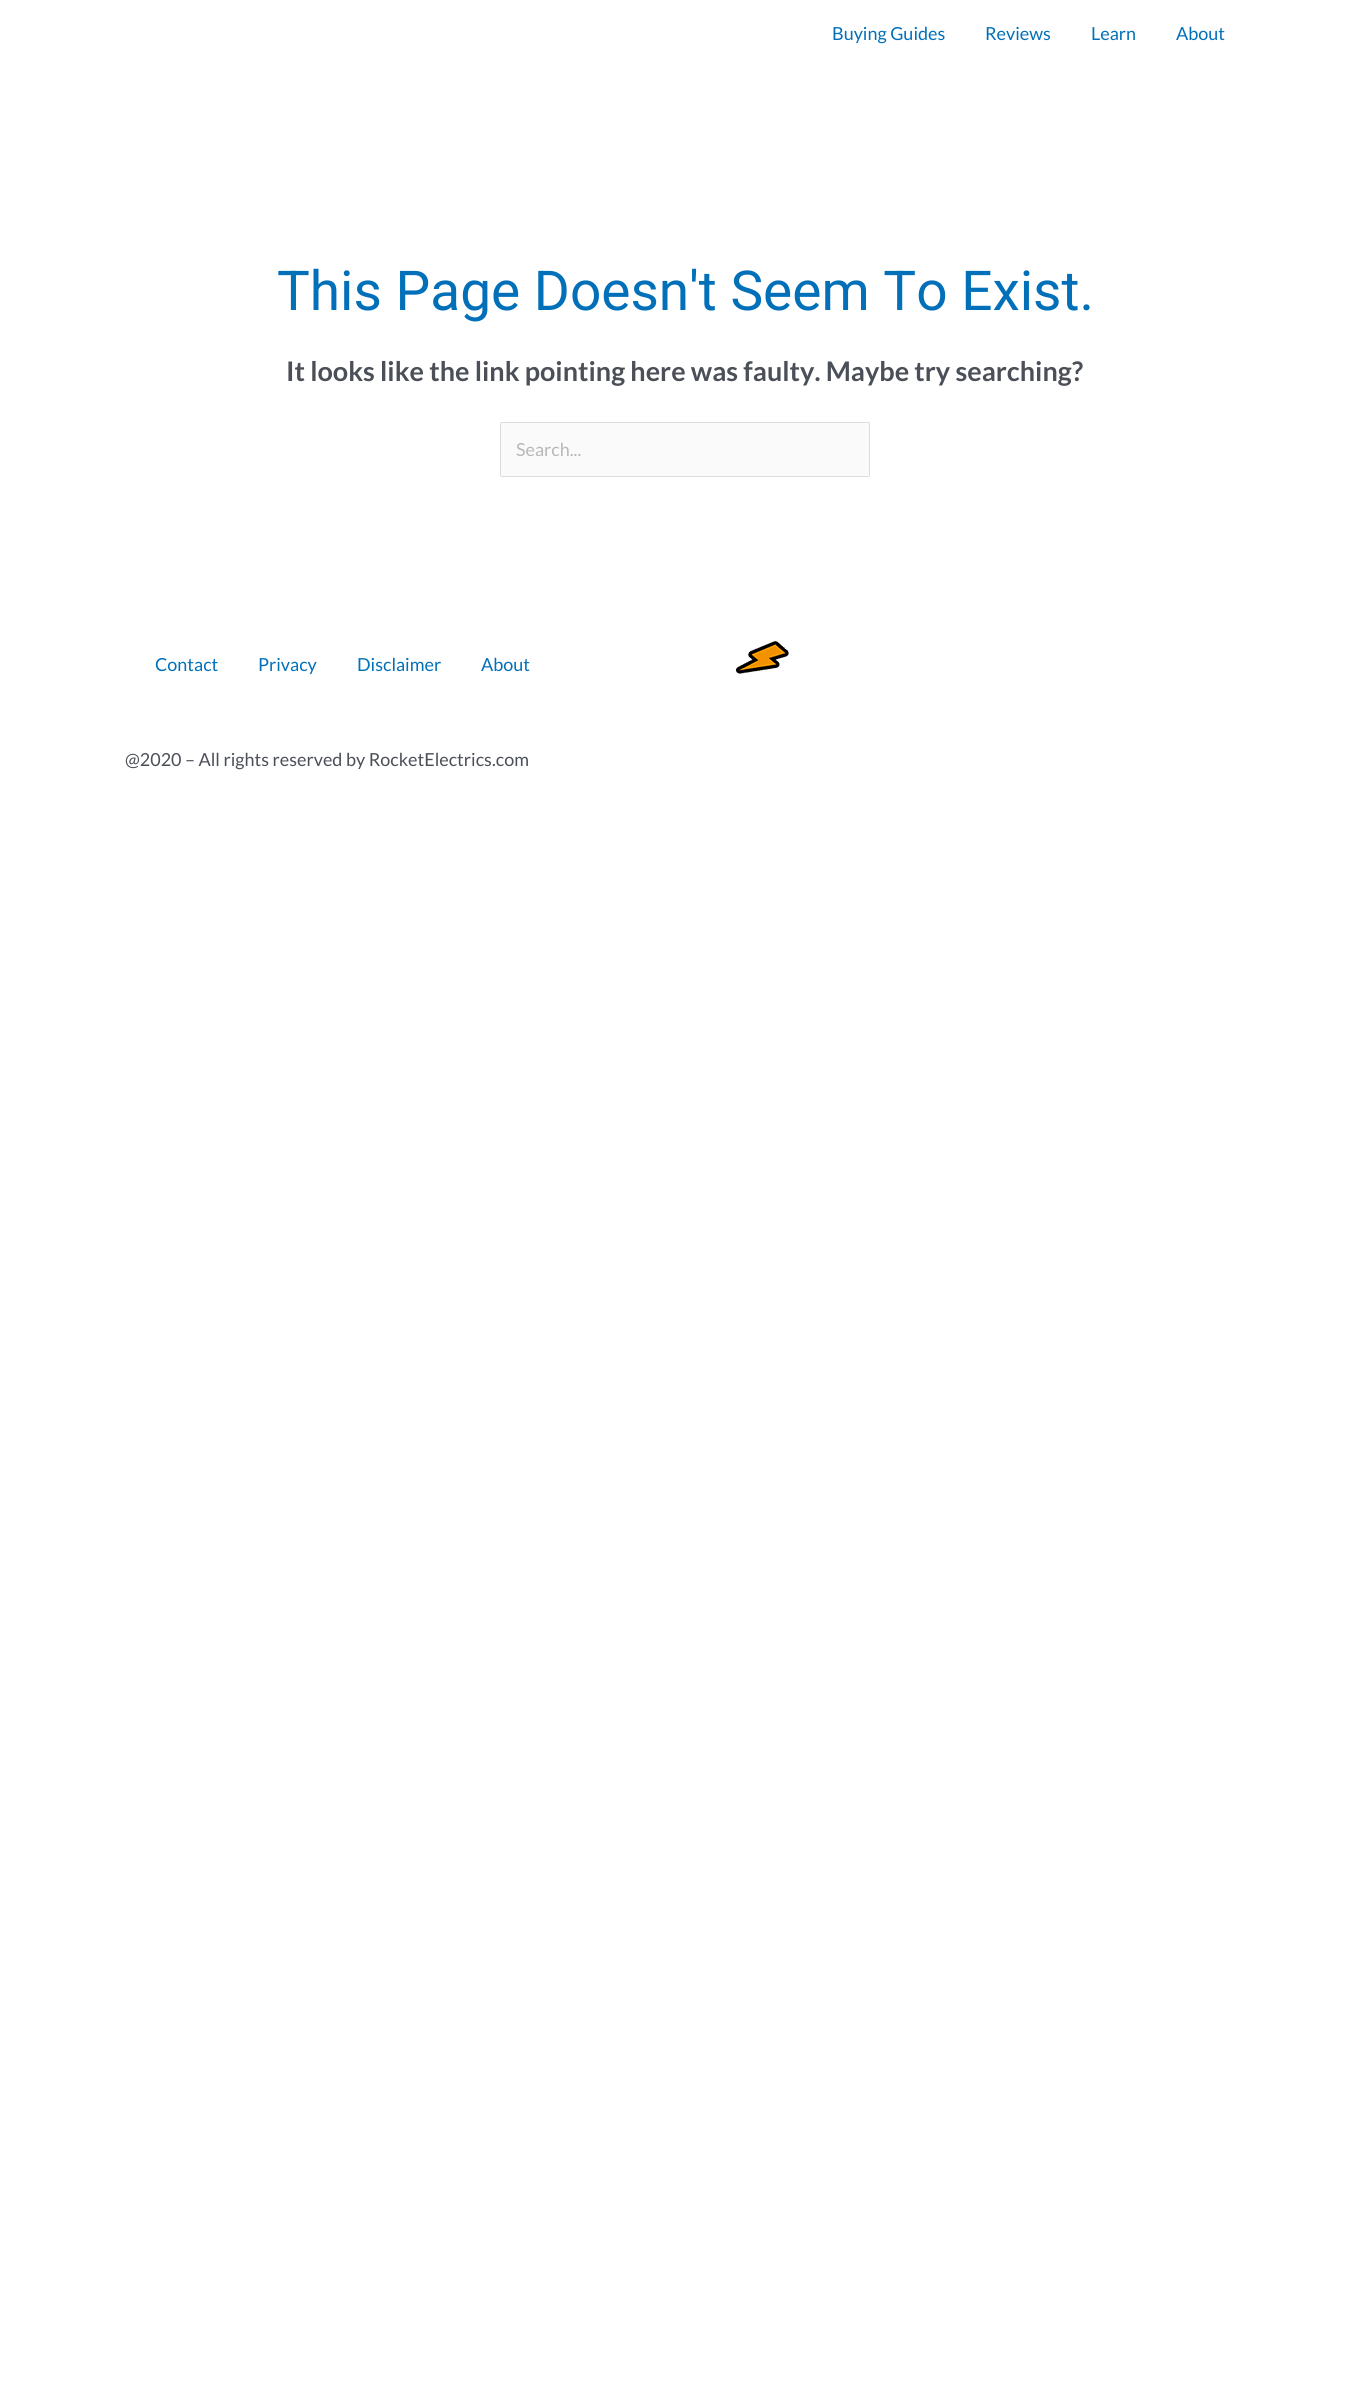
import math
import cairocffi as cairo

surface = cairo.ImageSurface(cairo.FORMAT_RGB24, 1370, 2384)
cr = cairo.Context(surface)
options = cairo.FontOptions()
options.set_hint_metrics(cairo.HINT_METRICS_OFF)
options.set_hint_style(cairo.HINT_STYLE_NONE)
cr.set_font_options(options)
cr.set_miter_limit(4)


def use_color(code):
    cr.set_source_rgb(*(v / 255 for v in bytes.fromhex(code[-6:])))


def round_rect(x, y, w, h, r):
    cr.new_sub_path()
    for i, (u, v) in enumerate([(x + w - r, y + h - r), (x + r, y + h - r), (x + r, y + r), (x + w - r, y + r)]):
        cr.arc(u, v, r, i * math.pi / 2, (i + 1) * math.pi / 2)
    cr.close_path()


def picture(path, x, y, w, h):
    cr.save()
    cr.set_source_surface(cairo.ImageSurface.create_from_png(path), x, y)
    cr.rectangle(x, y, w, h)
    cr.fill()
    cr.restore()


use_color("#ffffff")
cr.paint()
cr.select_font_face("Lato")
cr.set_font_size(18)
use_color("#0170b9")
cr.move_to(832, 40)
cr.show_text("Buying Guides")
cr.move_to(985, 40)
cr.show_text("Reviews")
cr.move_to(1091, 40)
cr.show_text("Learn")
cr.move_to(1176, 40)
cr.show_text("About")
cr.select_font_face("Roboto")
cr.set_font_size(55)
cr.move_to(277, 310)
cr.show_text("This Page Doesn't Seem To Exist.")
cr.select_font_face("Lato", cairo.FONT_SLANT_NORMAL, cairo.FONT_WEIGHT_BOLD)
cr.set_font_size(27)
use_color("#4b4f58")
cr.move_to(286, 381)
cr.show_text("It looks like the link pointing here was faulty. Maybe try searching?")
use_color("#fafafa")
round_rect(500.5, 422.5, 369, 54, 1.5)
cr.fill_preserve()
use_color("#dddddd")
cr.set_line_width(1)
cr.stroke()
cr.select_font_face("Lato")
cr.set_font_size(18)
use_color("#b8b8b8")
cr.move_to(516, 456)
cr.show_text("Search...")
use_color("#0170b9")
cr.move_to(155, 671)
cr.show_text("Contact")
cr.move_to(258, 671)
cr.show_text("Privacy")
cr.move_to(357, 671)
cr.show_text("Disclaimer")
cr.move_to(481, 671)
cr.show_text("About")
picture("img1.png", 736, 641, 53, 33)
use_color("#4b4f58")
cr.move_to(125, 766)
cr.show_text("@2020 – All rights reserved by RocketElectrics.com")
surface.write_to_png("result.png")
